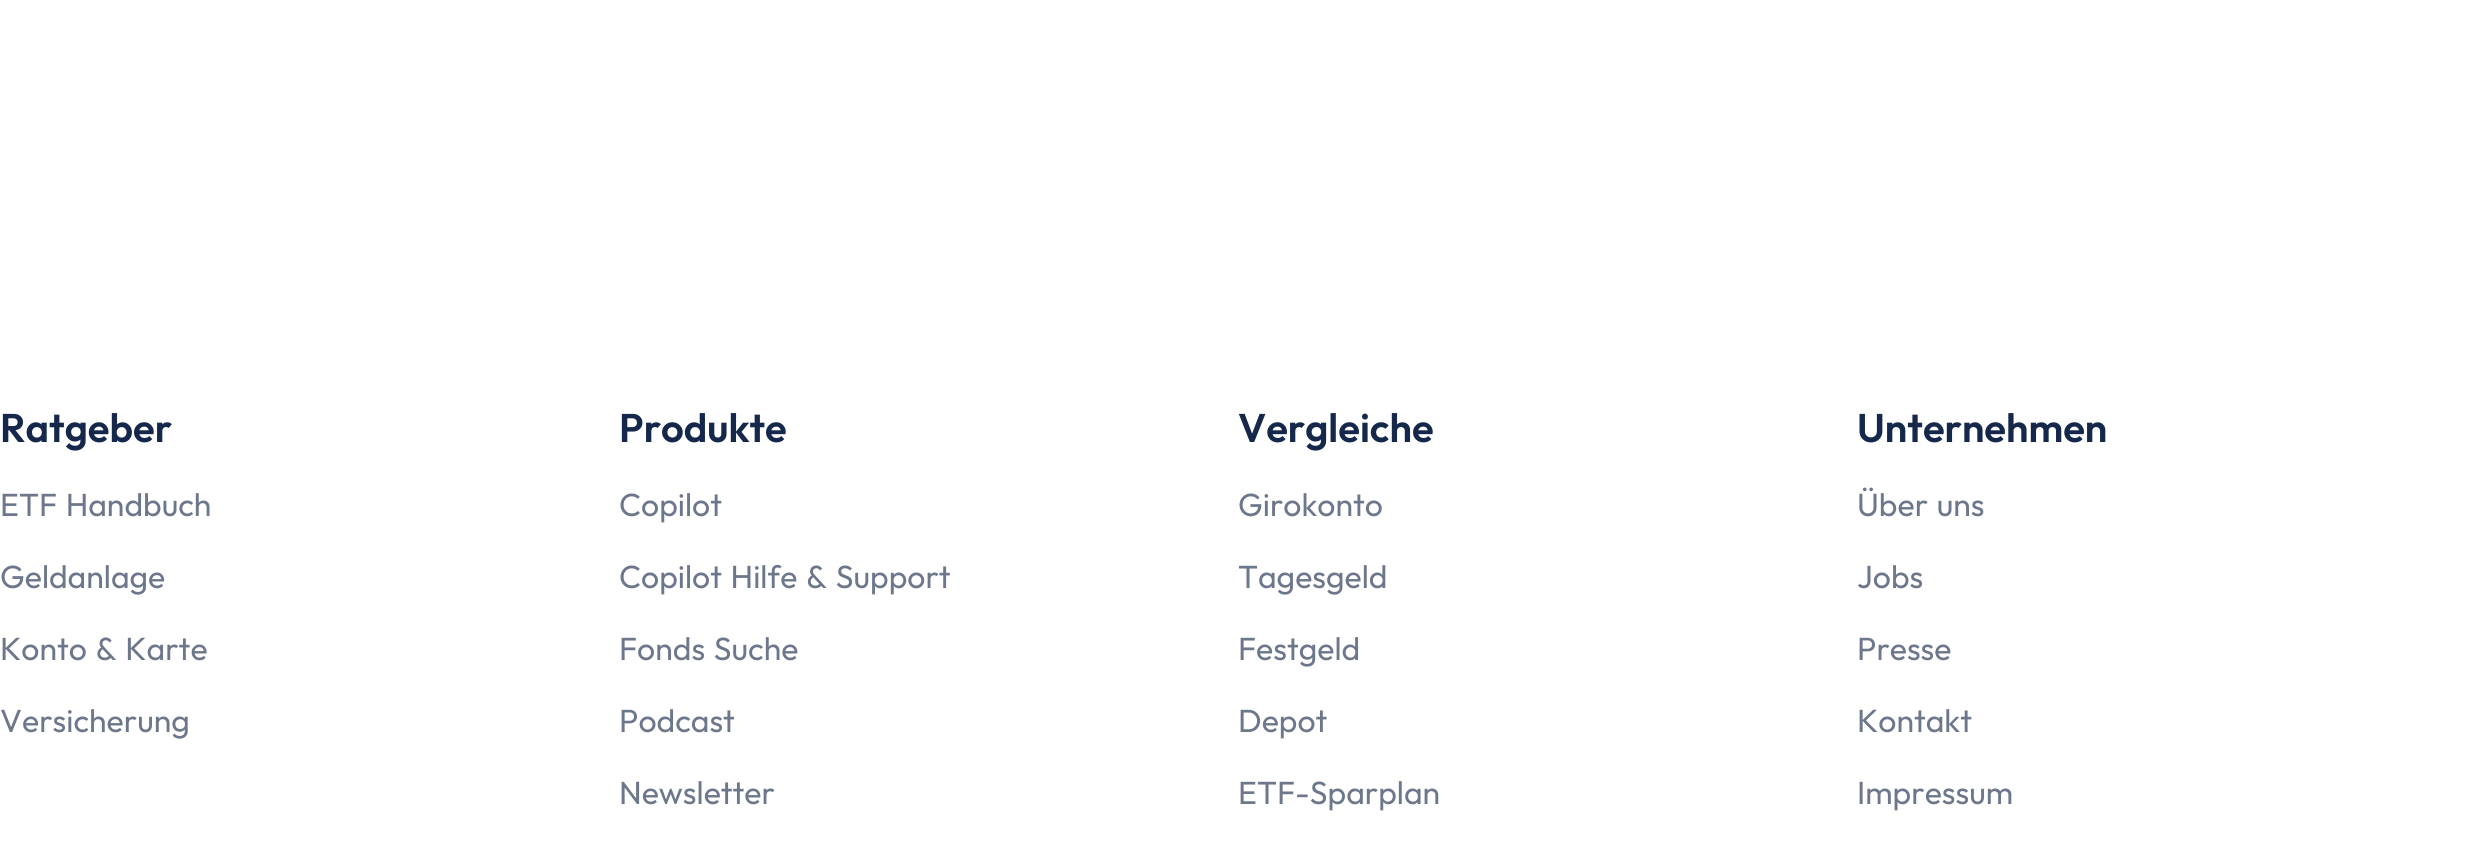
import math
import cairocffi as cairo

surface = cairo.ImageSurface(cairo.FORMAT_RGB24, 2476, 859)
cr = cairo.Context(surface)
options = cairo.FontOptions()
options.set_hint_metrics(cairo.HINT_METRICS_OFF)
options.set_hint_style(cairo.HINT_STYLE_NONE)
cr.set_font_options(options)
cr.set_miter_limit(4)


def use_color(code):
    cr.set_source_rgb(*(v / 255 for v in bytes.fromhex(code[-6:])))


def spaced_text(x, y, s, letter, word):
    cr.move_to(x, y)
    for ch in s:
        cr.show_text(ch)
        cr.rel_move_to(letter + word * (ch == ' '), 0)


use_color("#ffffff")
cr.paint()
cr.select_font_face("Outfit SemiBold")
cr.set_font_size(40)
use_color("#15284b")
cr.move_to(0, 442)
cr.show_text("Ratgeber")
cr.select_font_face("Outfit")
cr.set_font_size(32)
use_color("#6d778b")
spaced_text(0, 516, "ETF Handbuch", 0, 2)
cr.move_to(0, 588)
cr.show_text("Geldanlage")
spaced_text(0, 660, "Konto & Karte", 0, 2)
cr.move_to(0, 732)
cr.show_text("Versicherung")
cr.select_font_face("Outfit SemiBold")
cr.set_font_size(40)
use_color("#15284b")
cr.move_to(619, 442)
cr.show_text("Produkte")
cr.select_font_face("Outfit")
cr.set_font_size(32)
use_color("#6d778b")
cr.move_to(619, 516)
cr.show_text("Copilot")
spaced_text(619, 588, "Copilot Hilfe & Support", 0, 2)
spaced_text(619, 660, "Fonds Suche", 0, 2)
cr.move_to(619, 732)
cr.show_text("Podcast")
cr.move_to(619, 804)
cr.show_text("Newsletter")
cr.select_font_face("Outfit SemiBold")
cr.set_font_size(40)
use_color("#15284b")
cr.move_to(1238, 442)
cr.show_text("Vergleiche")
cr.select_font_face("Outfit")
cr.set_font_size(32)
use_color("#6d778b")
cr.move_to(1238, 516)
cr.show_text("Girokonto")
cr.move_to(1238, 588)
cr.show_text("Tagesgeld")
cr.move_to(1238, 660)
cr.show_text("Festgeld")
cr.move_to(1238, 732)
cr.show_text("Depot")
cr.move_to(1238, 804)
cr.show_text("ETF-Sparplan")
cr.select_font_face("Outfit SemiBold")
cr.set_font_size(40)
use_color("#15284b")
cr.move_to(1857, 442)
cr.show_text("Unternehmen")
cr.select_font_face("Outfit")
cr.set_font_size(32)
use_color("#6d778b")
spaced_text(1857, 516, "Über uns", 0, 2)
cr.move_to(1857, 588)
cr.show_text("Jobs")
cr.move_to(1857, 660)
cr.show_text("Presse")
cr.move_to(1857, 732)
cr.show_text("Kontakt")
cr.move_to(1857, 804)
cr.show_text("Impressum")
surface.write_to_png("result.png")
